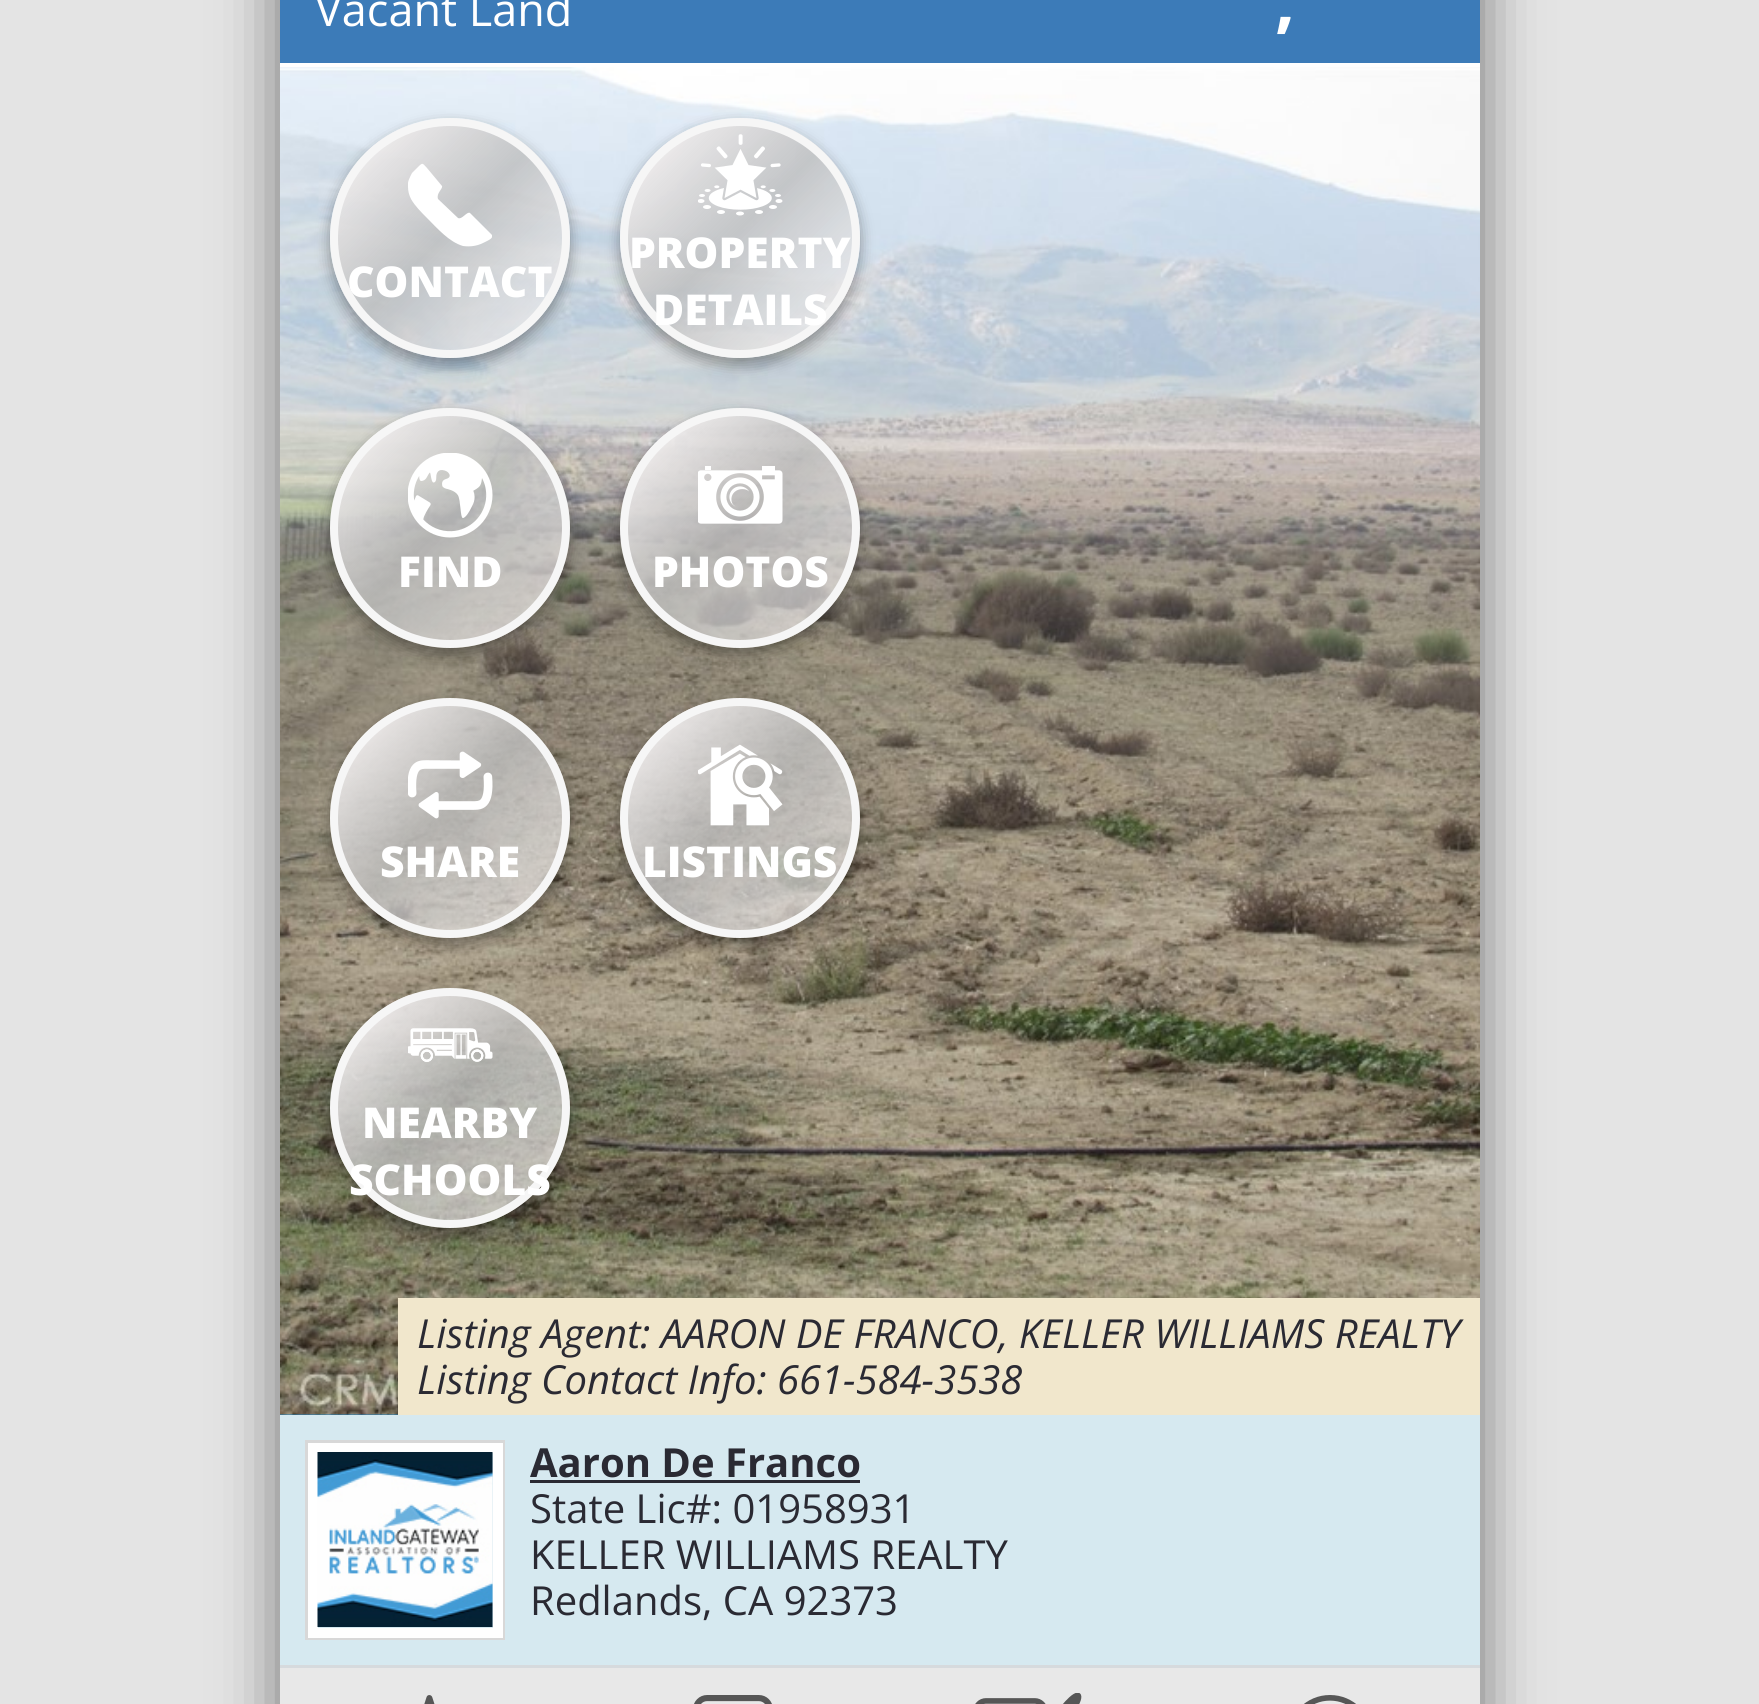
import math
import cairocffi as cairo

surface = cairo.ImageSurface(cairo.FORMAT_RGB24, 1759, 1704)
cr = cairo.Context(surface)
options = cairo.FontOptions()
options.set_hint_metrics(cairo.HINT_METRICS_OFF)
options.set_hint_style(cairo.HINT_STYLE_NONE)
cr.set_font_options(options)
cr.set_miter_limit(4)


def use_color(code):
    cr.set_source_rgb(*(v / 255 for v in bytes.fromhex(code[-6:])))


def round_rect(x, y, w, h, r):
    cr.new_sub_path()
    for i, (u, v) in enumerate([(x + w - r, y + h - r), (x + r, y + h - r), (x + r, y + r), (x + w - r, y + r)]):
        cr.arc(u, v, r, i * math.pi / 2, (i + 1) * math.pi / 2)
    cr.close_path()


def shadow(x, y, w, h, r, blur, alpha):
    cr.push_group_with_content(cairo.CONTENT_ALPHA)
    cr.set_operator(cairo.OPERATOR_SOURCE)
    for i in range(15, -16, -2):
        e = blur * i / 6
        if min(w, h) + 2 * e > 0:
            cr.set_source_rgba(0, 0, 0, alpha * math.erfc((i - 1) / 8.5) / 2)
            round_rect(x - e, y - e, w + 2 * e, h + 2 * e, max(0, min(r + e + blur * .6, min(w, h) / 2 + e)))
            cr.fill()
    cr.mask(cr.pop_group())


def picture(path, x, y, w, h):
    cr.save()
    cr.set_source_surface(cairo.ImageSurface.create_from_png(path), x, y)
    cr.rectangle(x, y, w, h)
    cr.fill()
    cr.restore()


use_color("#e4e4e4")
cr.paint()
use_color("#000000")
shadow(280, -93, 1200, 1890, 0, 31, 0.5)
use_color("#3c7bb8")
cr.rectangle(280, 0, 1200, 63)
cr.fill()
use_color("#ffffff")
cr.rectangle(280, 63, 1200, 4)
cr.fill()
cr.select_font_face("Open Sans")
cr.set_font_size(45)
cr.move_to(315, 26)
cr.show_text("Vacant Land")
cr.select_font_face("Open Sans", cairo.FONT_SLANT_NORMAL, cairo.FONT_WEIGHT_BOLD)
cr.set_font_size(70)
cr.move_to(1275, 25)
cr.show_text(",")
use_color("#217eb8")
cr.rectangle(280, 1414, 118, 1)
cr.fill()
picture("img1.png", 280, 67, 1200, 1348)
cr.save()
cr.set_fill_rule(cairo.FILL_RULE_EVEN_ODD)
cr.new_path()
cr.move_to(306, 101)
cr.line_to(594, 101)
cr.line_to(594, 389)
cr.line_to(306, 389)
cr.close_path()
cr.move_to(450, 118)
cr.curve_to(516.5, 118, 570, 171.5, 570, 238)
cr.curve_to(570, 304.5, 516.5, 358, 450, 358)
cr.curve_to(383.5, 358, 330, 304.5, 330, 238)
cr.curve_to(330, 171.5, 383.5, 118, 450, 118)
cr.close_path()
cr.clip()
use_color("#000000")
shadow(330, 125, 240, 240, 120, 7.5, 0.23)
shadow(330, 125, 240, 240, 120, 7.5, 0.16)
cr.restore()
cr.save()
round_rect(330, 118, 240, 240, 120)
cr.clip()
gradient = cairo.LinearGradient(563, 350, 338, 125)
gradient.add_color_stop_rgba(0, 1, 0.988, 0.988, 0.6)
gradient.add_color_stop_rgba(0.52, 0.745, 0.745, 0.745, 0.8)
gradient.add_color_stop_rgba(1, 1, 0.984, 0.984, 1)
cr.set_source(gradient)
cr.rectangle(338, 125, 225, 225)
cr.fill()
cr.restore()
cr.arc(450, 238, 116, 0, 2 * math.pi)
use_color("#f6f6f6")
cr.set_line_width(8)
cr.stroke()
cr.save()
cr.rectangle(408, 163, 85, 85)
cr.clip()
use_color("#ffffff")
cr.new_path()
cr.move_to(492, 235)
cr.line_to(470, 213)
cr.curve_to(467, 211, 462, 220, 458, 218)
cr.line_to(438, 199)
cr.curve_to(436, 193, 443, 189, 442, 186)
cr.line_to(427, 168)
cr.curve_to(423, 164, 423, 162, 419, 166)
cr.line_to(412, 173)
cr.curve_to(410, 177, 407, 182, 408, 187)
cr.curve_to(408, 191, 409, 195, 411, 199)
cr.curve_to(415, 206, 421, 212, 427, 218)
cr.curve_to(437, 228, 449, 242, 463, 246)
cr.curve_to(470, 247, 477, 246, 483, 243)
cr.curve_to(485, 242, 492, 239, 492, 237)
cr.close_path()
cr.fill()
cr.restore()
cr.select_font_face("Open Sans ExtraBold")
cr.set_font_size(42.5)
use_color("#ffffff")
cr.move_to(347, 297)
cr.show_text("CONTACT")
cr.save()
cr.set_fill_rule(cairo.FILL_RULE_EVEN_ODD)
cr.new_path()
cr.move_to(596, 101)
cr.line_to(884, 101)
cr.line_to(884, 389)
cr.line_to(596, 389)
cr.close_path()
cr.move_to(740, 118)
cr.curve_to(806.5, 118, 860, 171.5, 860, 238)
cr.curve_to(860, 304.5, 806.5, 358, 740, 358)
cr.curve_to(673.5, 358, 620, 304.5, 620, 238)
cr.curve_to(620, 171.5, 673.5, 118, 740, 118)
cr.close_path()
cr.clip()
use_color("#000000")
shadow(620, 125, 240, 240, 120, 7.5, 0.23)
shadow(620, 125, 240, 240, 120, 7.5, 0.16)
cr.restore()
cr.save()
round_rect(620, 118, 240, 240, 120)
cr.clip()
gradient = cairo.LinearGradient(853, 350, 628, 125)
gradient.add_color_stop_rgba(0, 1, 0.988, 0.988, 0.6)
gradient.add_color_stop_rgba(0.52, 0.745, 0.745, 0.745, 0.8)
gradient.add_color_stop_rgba(1, 1, 0.984, 0.984, 1)
cr.set_source(gradient)
cr.rectangle(628, 125, 225, 225)
cr.fill()
cr.restore()
cr.arc(740, 238, 116, 0, 2 * math.pi)
use_color("#f6f6f6")
cr.stroke()
picture("img2.png", 698, 134, 85, 82)
use_color("#ffffff")
cr.move_to(629, 268)
cr.show_text("PROPERTY")
cr.move_to(653, 325)
cr.show_text("DETAILS")
cr.save()
cr.set_fill_rule(cairo.FILL_RULE_EVEN_ODD)
cr.new_path()
cr.move_to(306, 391)
cr.line_to(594, 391)
cr.line_to(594, 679)
cr.line_to(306, 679)
cr.close_path()
cr.move_to(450, 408)
cr.curve_to(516.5, 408, 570, 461.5, 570, 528)
cr.curve_to(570, 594.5, 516.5, 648, 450, 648)
cr.curve_to(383.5, 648, 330, 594.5, 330, 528)
cr.curve_to(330, 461.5, 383.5, 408, 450, 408)
cr.close_path()
cr.clip()
use_color("#000000")
shadow(330, 415, 240, 240, 120, 7.5, 0.23)
shadow(330, 415, 240, 240, 120, 7.5, 0.16)
cr.restore()
cr.save()
round_rect(330, 408, 240, 240, 120)
cr.clip()
gradient = cairo.LinearGradient(563, 640, 338, 415)
gradient.add_color_stop_rgba(0, 1, 0.988, 0.988, 0.6)
gradient.add_color_stop_rgba(0.52, 0.745, 0.745, 0.745, 0.8)
gradient.add_color_stop_rgba(1, 1, 0.984, 0.984, 1)
cr.set_source(gradient)
cr.rectangle(338, 415, 225, 225)
cr.fill()
cr.restore()
cr.arc(450, 528, 116, 0, 2 * math.pi)
use_color("#f6f6f6")
cr.stroke()
picture("img3.png", 408, 453, 85, 85)
use_color("#ffffff")
cr.move_to(398, 587)
cr.show_text("FIND")
cr.save()
cr.set_fill_rule(cairo.FILL_RULE_EVEN_ODD)
cr.new_path()
cr.move_to(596, 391)
cr.line_to(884, 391)
cr.line_to(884, 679)
cr.line_to(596, 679)
cr.close_path()
cr.move_to(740, 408)
cr.curve_to(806.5, 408, 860, 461.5, 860, 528)
cr.curve_to(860, 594.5, 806.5, 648, 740, 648)
cr.curve_to(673.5, 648, 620, 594.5, 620, 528)
cr.curve_to(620, 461.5, 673.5, 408, 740, 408)
cr.close_path()
cr.clip()
use_color("#000000")
shadow(620, 415, 240, 240, 120, 7.5, 0.23)
shadow(620, 415, 240, 240, 120, 7.5, 0.16)
cr.restore()
cr.save()
round_rect(620, 408, 240, 240, 120)
cr.clip()
gradient = cairo.LinearGradient(853, 640, 628, 415)
gradient.add_color_stop_rgba(0, 1, 0.988, 0.988, 0.6)
gradient.add_color_stop_rgba(0.52, 0.745, 0.745, 0.745, 0.8)
gradient.add_color_stop_rgba(1, 1, 0.984, 0.984, 1)
cr.set_source(gradient)
cr.rectangle(628, 415, 225, 225)
cr.fill()
cr.restore()
cr.arc(740, 528, 116, 0, 2 * math.pi)
use_color("#f6f6f6")
cr.stroke()
picture("img4.png", 698, 466, 85, 58)
use_color("#ffffff")
cr.move_to(652, 587)
cr.show_text("PHOTOS")
cr.save()
cr.set_fill_rule(cairo.FILL_RULE_EVEN_ODD)
cr.new_path()
cr.move_to(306, 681)
cr.line_to(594, 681)
cr.line_to(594, 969)
cr.line_to(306, 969)
cr.close_path()
cr.move_to(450, 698)
cr.curve_to(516.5, 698, 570, 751.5, 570, 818)
cr.curve_to(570, 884.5, 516.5, 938, 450, 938)
cr.curve_to(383.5, 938, 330, 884.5, 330, 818)
cr.curve_to(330, 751.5, 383.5, 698, 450, 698)
cr.close_path()
cr.clip()
use_color("#000000")
shadow(330, 705, 240, 240, 120, 7.5, 0.23)
shadow(330, 705, 240, 240, 120, 7.5, 0.16)
cr.restore()
cr.save()
round_rect(330, 698, 240, 240, 120)
cr.clip()
gradient = cairo.LinearGradient(563, 930, 338, 705)
gradient.add_color_stop_rgba(0, 1, 0.988, 0.988, 0.6)
gradient.add_color_stop_rgba(0.52, 0.745, 0.745, 0.745, 0.8)
gradient.add_color_stop_rgba(1, 1, 0.984, 0.984, 1)
cr.set_source(gradient)
cr.rectangle(338, 705, 225, 225)
cr.fill()
cr.restore()
cr.arc(450, 818, 116, 0, 2 * math.pi)
use_color("#f6f6f6")
cr.stroke()
picture("img5.png", 408, 751, 85, 68)
use_color("#ffffff")
cr.move_to(380, 877)
cr.show_text("SHARE")
cr.save()
cr.set_fill_rule(cairo.FILL_RULE_EVEN_ODD)
cr.new_path()
cr.move_to(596, 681)
cr.line_to(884, 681)
cr.line_to(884, 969)
cr.line_to(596, 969)
cr.close_path()
cr.move_to(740, 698)
cr.curve_to(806.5, 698, 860, 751.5, 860, 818)
cr.curve_to(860, 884.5, 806.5, 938, 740, 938)
cr.curve_to(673.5, 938, 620, 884.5, 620, 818)
cr.curve_to(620, 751.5, 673.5, 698, 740, 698)
cr.close_path()
cr.clip()
use_color("#000000")
shadow(620, 705, 240, 240, 120, 7.5, 0.23)
shadow(620, 705, 240, 240, 120, 7.5, 0.16)
cr.restore()
cr.save()
round_rect(620, 698, 240, 240, 120)
cr.clip()
gradient = cairo.LinearGradient(853, 930, 628, 705)
gradient.add_color_stop_rgba(0, 1, 0.988, 0.988, 0.6)
gradient.add_color_stop_rgba(0.52, 0.745, 0.745, 0.745, 0.8)
gradient.add_color_stop_rgba(1, 1, 0.984, 0.984, 1)
cr.set_source(gradient)
cr.rectangle(628, 705, 225, 225)
cr.fill()
cr.restore()
cr.arc(740, 818, 116, 0, 2 * math.pi)
use_color("#f6f6f6")
cr.stroke()
picture("img6.png", 698, 744, 85, 82)
use_color("#ffffff")
cr.move_to(642, 877)
cr.show_text("LISTINGS")
cr.save()
cr.set_fill_rule(cairo.FILL_RULE_EVEN_ODD)
cr.new_path()
cr.move_to(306, 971)
cr.line_to(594, 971)
cr.line_to(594, 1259)
cr.line_to(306, 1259)
cr.close_path()
cr.move_to(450, 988)
cr.curve_to(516.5, 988, 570, 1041.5, 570, 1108)
cr.curve_to(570, 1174.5, 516.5, 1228, 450, 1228)
cr.curve_to(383.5, 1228, 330, 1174.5, 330, 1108)
cr.curve_to(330, 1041.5, 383.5, 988, 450, 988)
cr.close_path()
cr.clip()
use_color("#000000")
shadow(330, 995, 240, 240, 120, 7.5, 0.23)
shadow(330, 995, 240, 240, 120, 7.5, 0.16)
cr.restore()
cr.save()
round_rect(330, 988, 240, 240, 120)
cr.clip()
gradient = cairo.LinearGradient(563, 1220, 338, 995)
gradient.add_color_stop_rgba(0, 1, 0.988, 0.988, 0.6)
gradient.add_color_stop_rgba(0.52, 0.745, 0.745, 0.745, 0.8)
gradient.add_color_stop_rgba(1, 1, 0.984, 0.984, 1)
cr.set_source(gradient)
cr.rectangle(338, 995, 225, 225)
cr.fill()
cr.restore()
cr.arc(450, 1108, 116, 0, 2 * math.pi)
use_color("#f6f6f6")
cr.stroke()
picture("img7.png", 408, 1028, 85, 34)
use_color("#ffffff")
cr.move_to(362, 1138)
cr.show_text("NEARBY")
cr.move_to(349, 1195)
cr.show_text("SCHOOLS")
use_color("#f1e7cc")
cr.rectangle(398, 1298, 1082, 117)
cr.fill()
cr.select_font_face("Open Sans", cairo.FONT_SLANT_ITALIC)
cr.set_font_size(40)
use_color("#2a2a33")
cr.move_to(417, 1348)
cr.show_text("Listing Agent: AARON DE FRANCO, KELLER WILLIAMS REALTY")
cr.move_to(417, 1394)
cr.show_text("Listing Contact Info: 661-584-3538")
use_color("#d6e9f0")
cr.rectangle(280, 1415, 1200, 250)
cr.fill()
cr.rectangle(306.5, 1441.5, 197, 197)
use_color("#d8d8d8")
cr.set_line_width(3)
cr.stroke()
cr.rectangle(313, 1448, 185, 185)
use_color("#ffffff")
cr.set_line_width(10)
cr.stroke()
picture("img8.png", 317, 1452, 176, 175)
cr.select_font_face("Open Sans", cairo.FONT_SLANT_NORMAL, cairo.FONT_WEIGHT_BOLD)
use_color("#2a2a33")
cr.move_to(530, 1477)
cr.show_text("Aaron De Franco")
cr.rectangle(530, 1480, 330, 3)
cr.fill()
cr.select_font_face("Open Sans")
cr.move_to(530, 1523)
cr.show_text("State Lic#: 01958931")
cr.move_to(530, 1569)
cr.show_text("KELLER WILLIAMS REALTY")
cr.move_to(530, 1615)
cr.show_text("Redlands, CA 92373")
use_color("#e8e8e8")
cr.rectangle(280, 1668, 1200, 36)
cr.fill()
use_color("#d6dadd")
cr.rectangle(280, 1665, 1200, 3)
cr.fill()
picture("img9.png", 424, 1695, 11, 9)
picture("img10.png", 694, 1695, 78, 9)
picture("img11.png", 975, 1693, 107, 11)
picture("img12.png", 1304, 1695, 52, 9)
surface.write_to_png("result.png")
